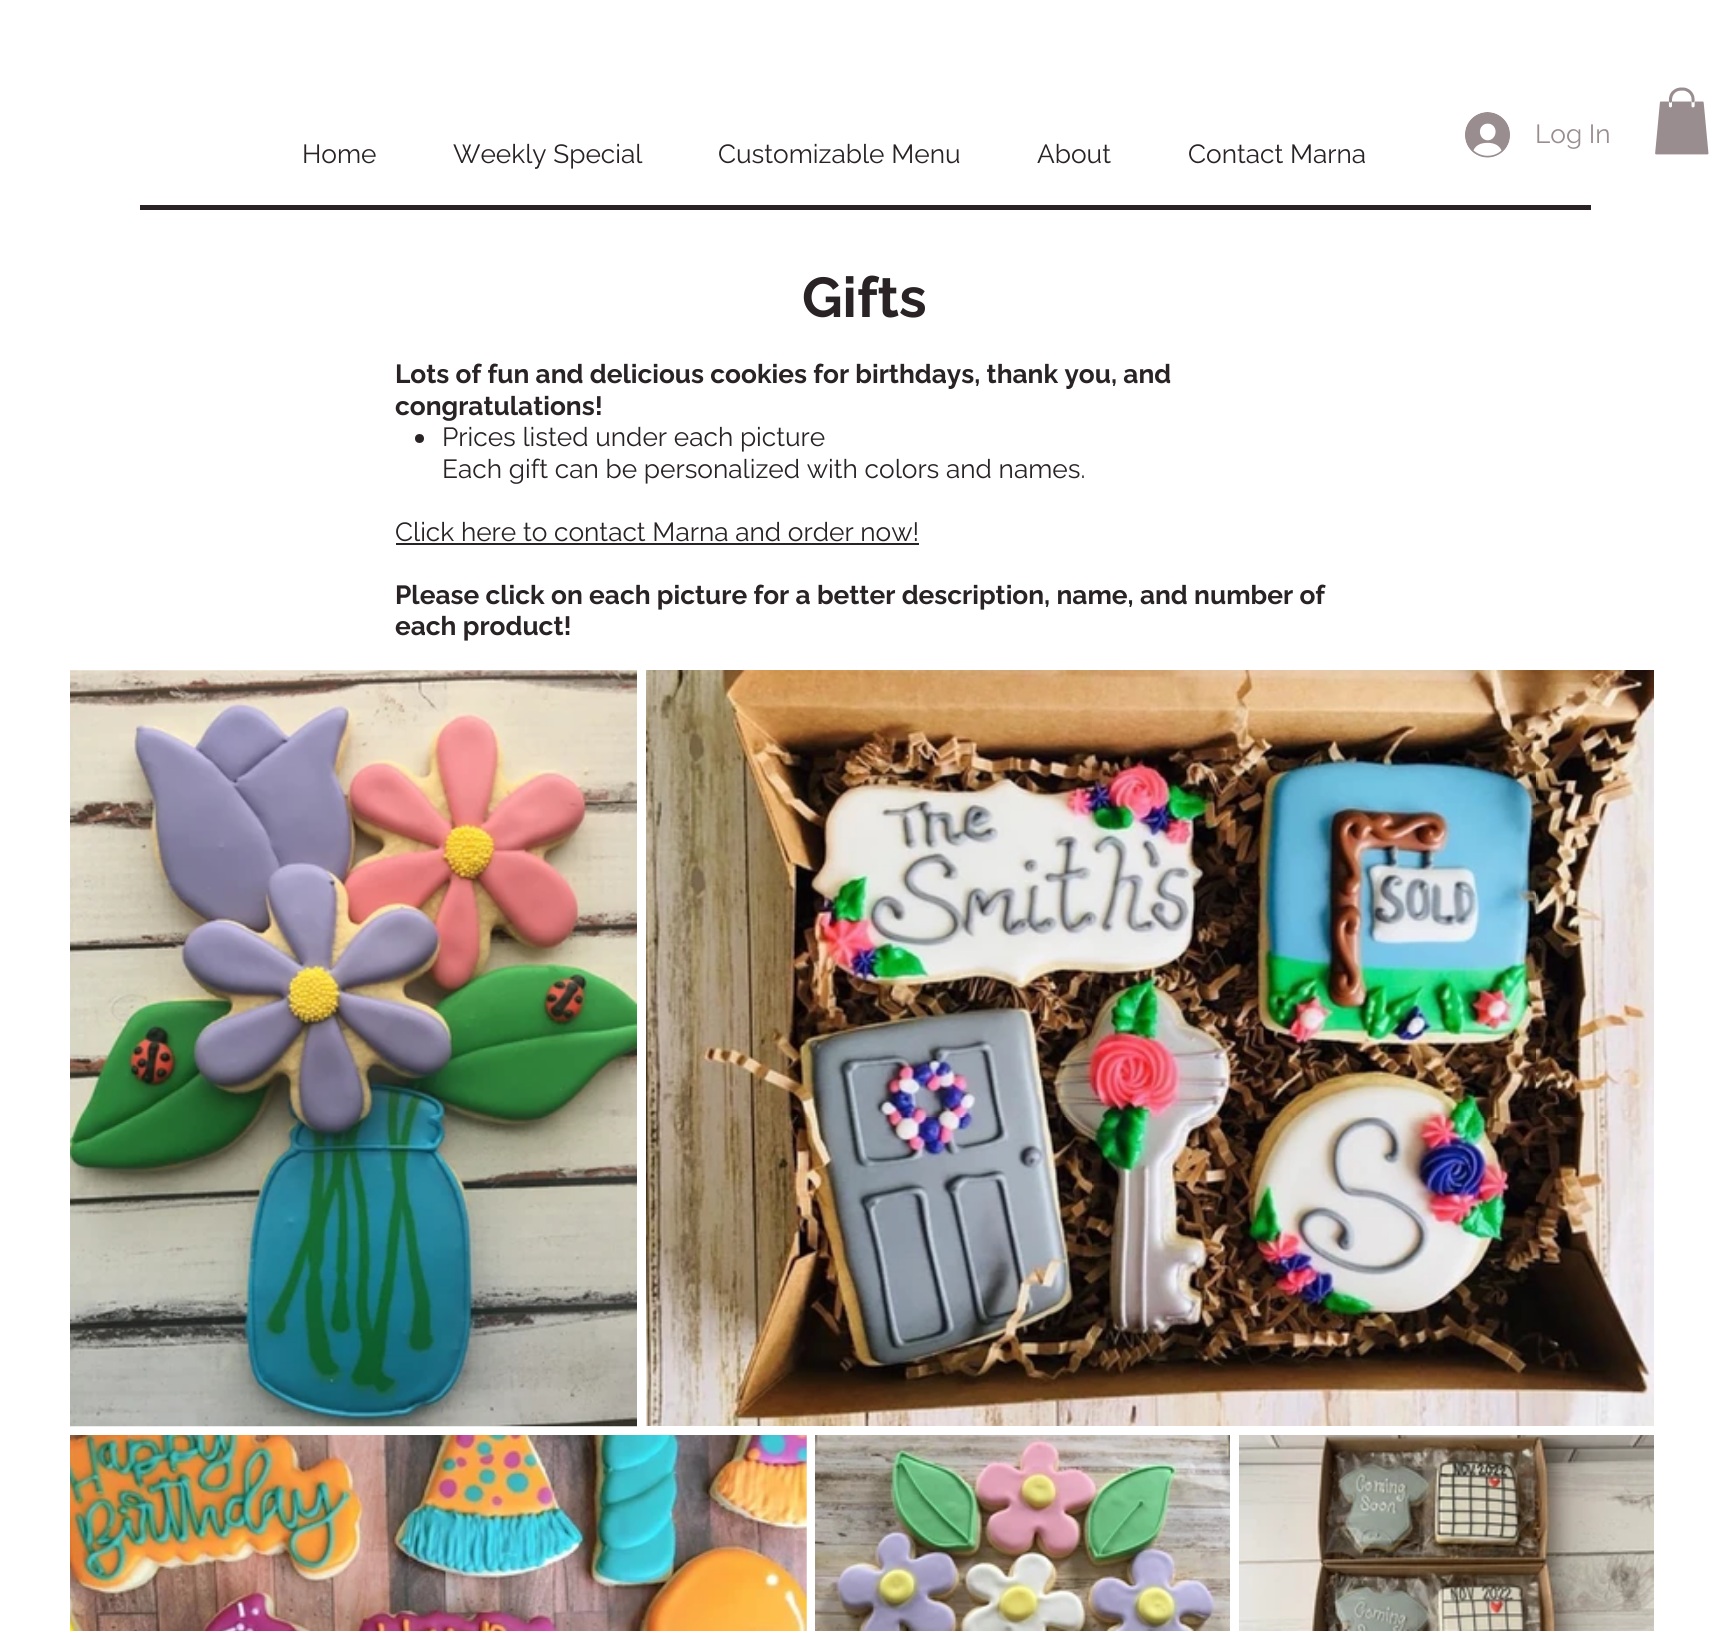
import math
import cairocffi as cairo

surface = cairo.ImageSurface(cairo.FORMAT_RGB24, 1730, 1631)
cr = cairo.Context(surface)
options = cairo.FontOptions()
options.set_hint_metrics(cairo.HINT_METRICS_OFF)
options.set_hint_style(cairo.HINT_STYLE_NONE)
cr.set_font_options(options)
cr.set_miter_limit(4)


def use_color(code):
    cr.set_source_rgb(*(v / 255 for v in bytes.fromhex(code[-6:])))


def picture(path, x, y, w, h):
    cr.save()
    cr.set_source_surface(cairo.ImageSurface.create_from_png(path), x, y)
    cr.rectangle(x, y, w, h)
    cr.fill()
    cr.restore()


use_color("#ffffff")
cr.paint()
picture("img1.png", 1465, 112, 45, 46)
cr.select_font_face("Raleway")
cr.set_font_size(26.25)
use_color("#998d8f")
cr.move_to(1535, 143)
cr.show_text("Log In")
picture("img2.png", 1655, 87, 54, 68)
use_color("#292325")
cr.move_to(302, 163)
cr.show_text("Home")
cr.move_to(453, 163)
cr.show_text("Weekly Special")
cr.move_to(718, 163)
cr.show_text("Customizable Menu")
cr.move_to(1037, 163)
cr.show_text("About")
cr.move_to(1188, 163)
cr.show_text("Contact Marna")
cr.rectangle(140, 205, 1451, 5)
cr.fill()
cr.select_font_face("Raleway", cairo.FONT_SLANT_NORMAL, cairo.FONT_WEIGHT_BOLD)
cr.set_font_size(56)
cr.move_to(802, 317)
cr.show_text("Gifts")
cr.set_font_size(26.25)
cr.move_to(395, 383)
cr.show_text("Lots of fun and delicious cookies for birthdays, thank you, and")
cr.move_to(395, 415)
cr.show_text("congratulations!")
cr.new_path()
cr.arc(419.5, 438.5, 4.5, 0, 2 * math.pi)
cr.fill()
cr.select_font_face("Raleway")
cr.move_to(442, 446)
cr.show_text("Prices listed under each picture")
cr.move_to(442, 478)
cr.show_text("Each gift can be personalized with colors and names.")
cr.move_to(395, 541)
cr.show_text("Click here to contact Marna and order now!")
cr.rectangle(396, 543, 523, 2)
cr.fill()
cr.select_font_face("Raleway", cairo.FONT_SLANT_NORMAL, cairo.FONT_WEIGHT_BOLD)
cr.move_to(395, 604)
cr.show_text("Please click on each picture for a better description, name, and number of")
cr.move_to(395, 635)
cr.show_text("each product!")
picture("img3.png", 70, 670, 567, 757)
picture("img4.png", 646, 670, 1008, 756)
picture("img5.png", 70, 1435, 737, 196)
picture("img6.png", 815, 1435, 415, 196)
picture("img7.png", 1239, 1435, 415, 196)
surface.write_to_png("result.png")
